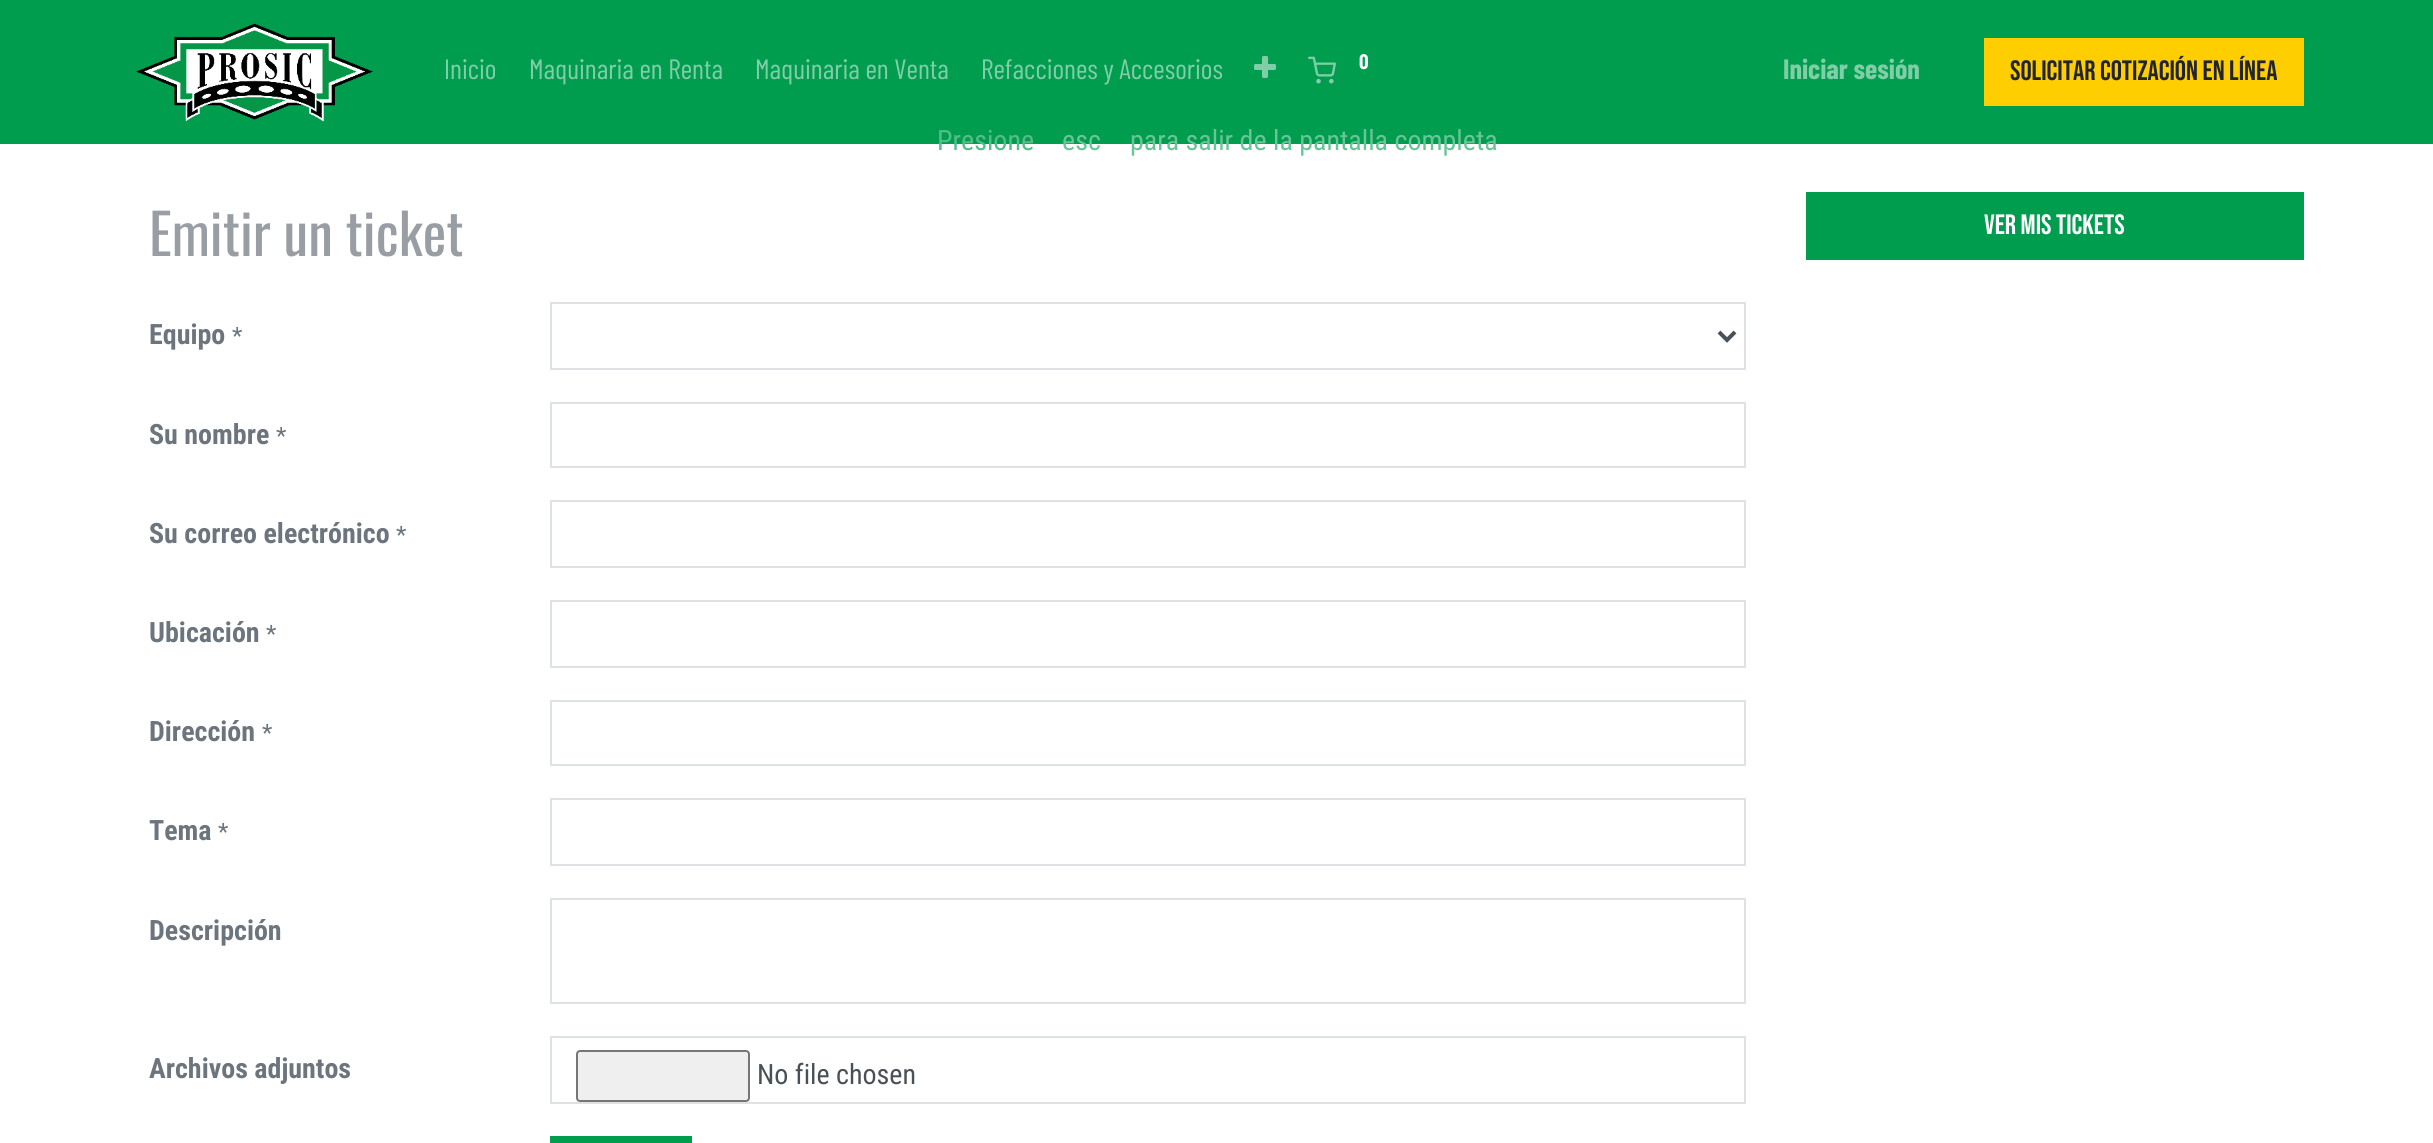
import math
import cairocffi as cairo

surface = cairo.ImageSurface(cairo.FORMAT_RGB24, 2433, 1143)
cr = cairo.Context(surface)
options = cairo.FontOptions()
options.set_hint_metrics(cairo.HINT_METRICS_OFF)
options.set_hint_style(cairo.HINT_STYLE_NONE)
cr.set_font_options(options)
cr.set_miter_limit(4)


def use_color(code):
    cr.set_source_rgb(*(v / 255 for v in bytes.fromhex(code[-6:])))


def round_rect(x, y, w, h, r):
    cr.new_sub_path()
    for i, (u, v) in enumerate([(x + w - r, y + h - r), (x + r, y + h - r), (x + r, y + r), (x + w - r, y + r)]):
        cr.arc(u, v, r, i * math.pi / 2, (i + 1) * math.pi / 2)
    cr.close_path()


def picture(path, x, y, w, h):
    cr.save()
    cr.set_source_surface(cairo.ImageSurface.create_from_png(path), x, y)
    cr.rectangle(x, y, w, h)
    cr.fill()
    cr.restore()


use_color("#ffffff")
cr.paint()
use_color("#009d4f")
cr.rectangle(0, 0, 2433, 144)
cr.fill()
picture("img1.png", 136, 23, 237, 99)
cr.select_font_face("Barlow Condensed")
cr.set_font_size(28)
use_color("#80cea7")
cr.move_to(444, 79)
cr.show_text("Inicio")
cr.move_to(529, 79)
cr.show_text("Maquinaria en Renta")
cr.move_to(755, 79)
cr.show_text("Maquinaria en Venta")
cr.move_to(981, 79)
cr.show_text("Refacciones y Accesorios")
picture("img2.png", 1254, 56, 22, 22)
picture("img3.png", 1308, 56, 28, 28)
cr.select_font_face("Barlow Condensed", cairo.FONT_SLANT_NORMAL, cairo.FONT_WEIGHT_BOLD)
cr.set_font_size(21)
use_color("#ffffff")
cr.move_to(1359, 69)
cr.show_text("0")
cr.set_font_size(28)
use_color("#80cea7")
cr.move_to(1783, 79)
cr.show_text("Iniciar sesión")
use_color("#ffce00")
cr.rectangle(1984, 38, 320, 68)
cr.fill()
cr.select_font_face("Bebas Neue")
use_color("#212529")
cr.move_to(2010, 80)
cr.show_text("SOLICITAR COTIZACIÓN EN LÍNEA")
cr.select_font_face("Oswald")
cr.set_font_size(56)
use_color("#989ea4")
cr.move_to(149, 256)
cr.show_text("Emitir un ticket")
cr.select_font_face("Roboto Condensed", cairo.FONT_SLANT_NORMAL, cairo.FONT_WEIGHT_BOLD)
cr.set_font_size(28)
use_color("#6c757d")
cr.move_to(149, 344)
cr.show_text("Equipo")
cr.select_font_face("Roboto Condensed")
cr.set_font_size(24)
cr.move_to(232, 344)
cr.show_text("*")
cr.rectangle(551, 303, 1194, 66)
use_color("#dee2e6")
cr.stroke()
cr.new_path()
cr.move_to(1719, 332)
cr.line_to(1727, 340)
cr.line_to(1735, 332)
use_color("#495057")
cr.set_line_width(4)
cr.stroke()
cr.select_font_face("Roboto Condensed", cairo.FONT_SLANT_NORMAL, cairo.FONT_WEIGHT_BOLD)
cr.set_font_size(28)
use_color("#6c757d")
cr.move_to(149, 444)
cr.show_text("Su nombre")
cr.select_font_face("Roboto Condensed")
cr.set_font_size(24)
cr.move_to(276, 444)
cr.show_text("*")
cr.rectangle(551, 403, 1194, 64)
use_color("#dee2e6")
cr.set_line_width(2)
cr.stroke()
cr.select_font_face("Roboto Condensed", cairo.FONT_SLANT_NORMAL, cairo.FONT_WEIGHT_BOLD)
cr.set_font_size(28)
use_color("#6c757d")
cr.move_to(149, 543)
cr.show_text("Su correo electrónico")
cr.select_font_face("Roboto Condensed")
cr.set_font_size(24)
cr.move_to(396, 543)
cr.show_text("*")
cr.rectangle(551, 501, 1194, 66)
use_color("#dee2e6")
cr.stroke()
cr.select_font_face("Roboto Condensed", cairo.FONT_SLANT_NORMAL, cairo.FONT_WEIGHT_BOLD)
cr.set_font_size(28)
use_color("#6c757d")
cr.move_to(149, 642)
cr.show_text("Ubicación")
cr.select_font_face("Roboto Condensed")
cr.set_font_size(24)
cr.move_to(266, 642)
cr.show_text("*")
cr.rectangle(551, 601, 1194, 66)
use_color("#dee2e6")
cr.stroke()
cr.select_font_face("Roboto Condensed", cairo.FONT_SLANT_NORMAL, cairo.FONT_WEIGHT_BOLD)
cr.set_font_size(28)
use_color("#6c757d")
cr.move_to(149, 741)
cr.show_text("Dirección")
cr.select_font_face("Roboto Condensed")
cr.set_font_size(24)
cr.move_to(262, 741)
cr.show_text("*")
cr.rectangle(551, 701, 1194, 64)
use_color("#dee2e6")
cr.stroke()
cr.select_font_face("Roboto Condensed", cairo.FONT_SLANT_NORMAL, cairo.FONT_WEIGHT_BOLD)
cr.set_font_size(28)
use_color("#6c757d")
cr.move_to(149, 840)
cr.show_text("Tema")
cr.select_font_face("Roboto Condensed")
cr.set_font_size(24)
cr.move_to(218, 840)
cr.show_text("*")
cr.rectangle(551, 799, 1194, 66)
use_color("#dee2e6")
cr.stroke()
cr.select_font_face("Roboto Condensed", cairo.FONT_SLANT_NORMAL, cairo.FONT_WEIGHT_BOLD)
cr.set_font_size(28)
use_color("#6c757d")
cr.move_to(149, 940)
cr.show_text("Descripción")
cr.rectangle(551, 899, 1194, 104)
use_color("#dee2e6")
cr.stroke()
use_color("#6c757d")
cr.move_to(149, 1078)
cr.show_text("Archivos adjuntos")
cr.rectangle(551, 1037, 1194, 66)
use_color("#dee2e6")
cr.stroke()
use_color("#efefef")
round_rect(577, 1051, 172, 50, 3)
cr.fill_preserve()
use_color("#767676")
cr.stroke()
cr.select_font_face("Roboto Condensed")
use_color("#495057")
cr.move_to(757, 1084)
cr.show_text("No file chosen")
use_color("#009d4e")
cr.rectangle(550, 1136, 142, 7)
cr.fill()
cr.rectangle(1806, 192, 498, 68)
cr.fill()
cr.select_font_face("Bebas Neue")
use_color("#ffffff")
cr.move_to(1984, 234)
cr.show_text("Ver mis tickets")
cr.select_font_face("Roboto Condensed")
use_color("#54bd89")
cr.move_to(937, 150)
cr.show_text("Presione")
use_color("#68c597")
cr.move_to(1062, 150)
cr.show_text("esc")
cr.move_to(1130, 150)
cr.show_text("para salir de la pantalla completa")
surface.write_to_png("result.png")
